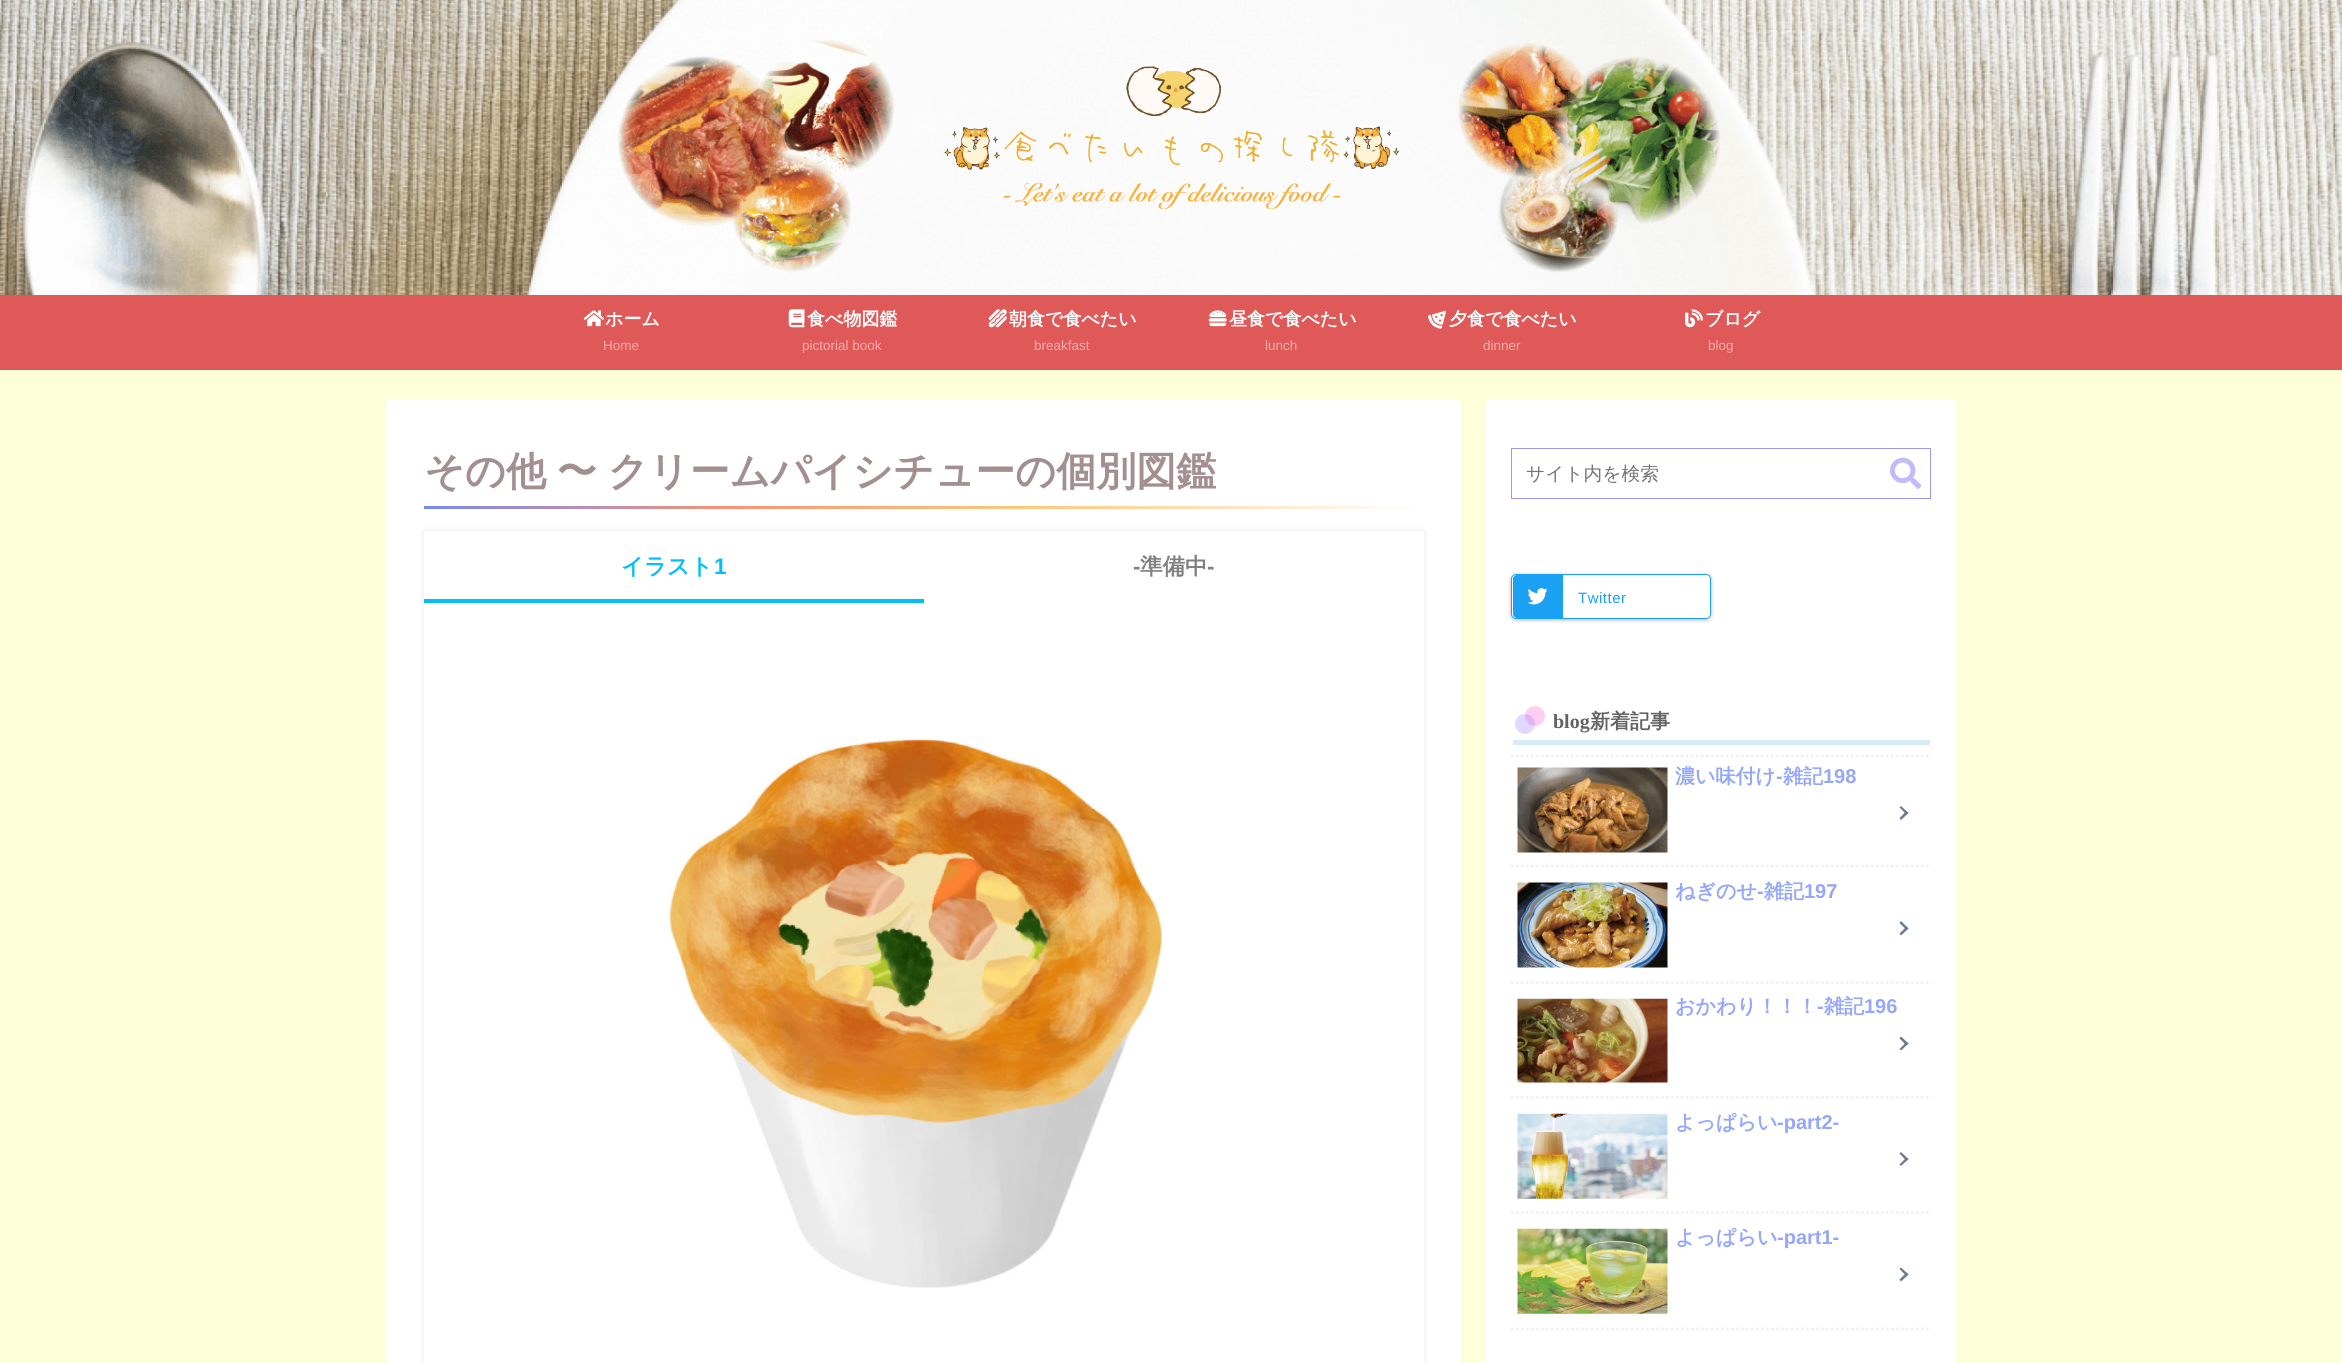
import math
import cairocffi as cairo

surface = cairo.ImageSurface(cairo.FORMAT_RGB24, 2342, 1363)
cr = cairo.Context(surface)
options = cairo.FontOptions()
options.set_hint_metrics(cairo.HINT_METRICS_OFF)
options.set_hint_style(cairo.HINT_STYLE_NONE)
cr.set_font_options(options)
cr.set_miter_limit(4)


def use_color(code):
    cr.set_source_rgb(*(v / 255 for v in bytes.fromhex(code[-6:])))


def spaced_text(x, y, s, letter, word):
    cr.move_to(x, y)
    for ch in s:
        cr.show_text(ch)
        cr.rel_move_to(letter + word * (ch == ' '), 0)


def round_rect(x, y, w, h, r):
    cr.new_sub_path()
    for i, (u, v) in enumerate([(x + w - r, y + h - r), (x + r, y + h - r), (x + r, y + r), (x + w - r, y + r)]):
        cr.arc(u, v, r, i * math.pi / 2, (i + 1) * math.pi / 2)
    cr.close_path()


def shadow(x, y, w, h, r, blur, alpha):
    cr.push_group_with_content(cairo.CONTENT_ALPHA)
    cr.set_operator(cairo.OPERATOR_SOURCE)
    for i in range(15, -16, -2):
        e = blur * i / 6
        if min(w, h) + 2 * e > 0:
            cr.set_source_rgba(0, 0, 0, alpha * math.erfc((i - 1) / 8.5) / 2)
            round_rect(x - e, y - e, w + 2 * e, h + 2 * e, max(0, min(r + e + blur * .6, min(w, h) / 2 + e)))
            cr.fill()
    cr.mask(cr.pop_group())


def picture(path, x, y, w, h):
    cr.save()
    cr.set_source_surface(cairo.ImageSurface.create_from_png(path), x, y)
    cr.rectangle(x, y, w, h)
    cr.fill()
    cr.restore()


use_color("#fdffdb")
cr.paint()
picture("img1.png", 0, 0, 2342, 295)
picture("img2.png", 944, 66, 456, 143)
use_color("#e05959")
cr.rectangle(0, 295, 2342, 75)
cr.fill()
picture("img3.png", 583, 310, 21, 17)
cr.select_font_face("WenQuanYi Zen Hei", cairo.FONT_SLANT_NORMAL, cairo.FONT_WEIGHT_BOLD)
cr.set_font_size(18)
use_color("#ffffff")
cr.move_to(605, 325)
cr.show_text("ホーム")
cr.select_font_face("Liberation Sans")
cr.set_font_size(13.5)
use_color("#f0acac")
cr.move_to(603, 350)
cr.show_text("Home")
picture("img4.png", 788, 309, 17, 19)
cr.select_font_face("WenQuanYi Zen Hei", cairo.FONT_SLANT_NORMAL, cairo.FONT_WEIGHT_BOLD)
cr.set_font_size(18)
use_color("#ffffff")
cr.move_to(807, 325)
cr.show_text("食べ物図鑑")
cr.select_font_face("Liberation Sans")
cr.set_font_size(13.5)
use_color("#f0acac")
cr.move_to(802, 350)
cr.show_text("pictorial book")
picture("img5.png", 988, 309, 19, 19)
cr.select_font_face("WenQuanYi Zen Hei", cairo.FONT_SLANT_NORMAL, cairo.FONT_WEIGHT_BOLD)
cr.set_font_size(18)
use_color("#ffffff")
cr.move_to(1009, 325)
cr.show_text("朝食で食べたい")
cr.select_font_face("Liberation Sans")
cr.set_font_size(13.5)
use_color("#f0acac")
cr.move_to(1034, 350)
cr.show_text("breakfast")
picture("img6.png", 1208, 310, 19, 17)
cr.select_font_face("WenQuanYi Zen Hei", cairo.FONT_SLANT_NORMAL, cairo.FONT_WEIGHT_BOLD)
cr.set_font_size(18)
use_color("#ffffff")
cr.move_to(1229, 325)
cr.show_text("昼食で食べたい")
cr.select_font_face("Liberation Sans")
cr.set_font_size(13.5)
use_color("#f0acac")
cr.move_to(1265, 350)
cr.show_text("lunch")
picture("img7.png", 1428, 310, 19, 19)
cr.select_font_face("WenQuanYi Zen Hei", cairo.FONT_SLANT_NORMAL, cairo.FONT_WEIGHT_BOLD)
cr.set_font_size(18)
use_color("#ffffff")
cr.move_to(1449, 325)
cr.show_text("夕食で食べたい")
cr.select_font_face("Liberation Sans")
cr.set_font_size(13.5)
use_color("#f0acac")
cr.move_to(1483, 350)
cr.show_text("dinner")
picture("img8.png", 1685, 309, 18, 19)
cr.select_font_face("WenQuanYi Zen Hei", cairo.FONT_SLANT_NORMAL, cairo.FONT_WEIGHT_BOLD)
cr.set_font_size(18)
use_color("#ffffff")
cr.move_to(1705, 325)
cr.show_text("ブログ")
cr.select_font_face("Liberation Sans")
cr.set_font_size(13.5)
use_color("#f0acac")
cr.move_to(1708, 350)
cr.show_text("blog")
use_color("#ffffff")
round_rect(386, 400, 1075, 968, 5)
cr.fill()
cr.select_font_face("WenQuanYi Zen Hei", cairo.FONT_SLANT_NORMAL, cairo.FONT_WEIGHT_BOLD)
cr.set_font_size(40)
use_color("#a38f8f")
spaced_text(424, 485, "その他 〜 クリームパイシチューの個別図鑑", 0, -1)
gradient = cairo.LinearGradient(424, 508, 1424, 508)
gradient.add_color_stop_rgba(0, 0.455, 0.541, 0.973, 1)
gradient.add_color_stop_rgba(0.3, 0.973, 0.569, 0.455, 1)
gradient.add_color_stop_rgba(0.6, 1, 0.78, 0.471, 1)
gradient.add_color_stop_rgba(1, 1, 1, 1, 1)
cr.set_source(gradient)
cr.rectangle(424, 506, 1000, 3)
cr.fill()
use_color("#000000")
shadow(424, 531, 1000, 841, 0, 3, 0.1)
use_color("#ffffff")
cr.rectangle(424, 531, 1000, 832)
cr.fill()
cr.set_font_size(22.5)
use_color("#00bfff")
cr.move_to(621, 574)
cr.show_text("イラスト")
cr.select_font_face("Liberation Sans", cairo.FONT_SLANT_NORMAL, cairo.FONT_WEIGHT_BOLD)
cr.move_to(714, 574)
cr.show_text("1")
cr.rectangle(424, 599, 500, 4)
cr.fill()
use_color("#808080")
cr.move_to(1133, 574)
cr.show_text("-")
cr.select_font_face("WenQuanYi Zen Hei", cairo.FONT_SLANT_NORMAL, cairo.FONT_WEIGHT_BOLD)
cr.move_to(1140, 574)
cr.show_text("準備中")
cr.select_font_face("Liberation Sans", cairo.FONT_SLANT_NORMAL, cairo.FONT_WEIGHT_BOLD)
cr.move_to(1207, 574)
cr.show_text("-")
picture("img9.png", 669, 738, 495, 550)
use_color("#ffffff")
round_rect(1486, 400, 470, 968, 5)
cr.fill()
cr.rectangle(1511.5, 448.5, 419, 50)
use_color("#9d97ef")
cr.set_line_width(1)
cr.stroke()
cr.select_font_face("WenQuanYi Zen Hei Medium")
cr.set_font_size(18.75)
use_color("#757575")
cr.move_to(1526, 480)
cr.show_text("サイト内を検索")
picture("img10.png", 1890, 457, 32, 32)
cr.save()
cr.set_fill_rule(cairo.FILL_RULE_EVEN_ODD)
cr.new_path()
cr.move_to(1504, 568)
cr.line_to(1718, 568)
cr.line_to(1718, 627)
cr.line_to(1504, 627)
cr.close_path()
cr.move_to(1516, 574)
cr.line_to(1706, 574)
cr.curve_to(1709, 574, 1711, 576, 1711, 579)
cr.line_to(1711, 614)
cr.curve_to(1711, 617, 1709, 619, 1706, 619)
cr.line_to(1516, 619)
cr.curve_to(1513, 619, 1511, 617, 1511, 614)
cr.line_to(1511, 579)
cr.curve_to(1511, 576, 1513, 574, 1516, 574)
cr.close_path()
cr.clip()
use_color("#000000")
shadow(1511, 575, 200, 45, 5, 2, 0.3)
cr.restore()
round_rect(1511.5, 574.5, 199, 44, 4.5)
use_color("#1ba1f3")
cr.stroke()
cr.new_path()
cr.move_to(1517, 575)
cr.line_to(1563, 575)
cr.line_to(1563, 618)
cr.line_to(1517, 618)
cr.curve_to(1515, 618, 1513, 616, 1513, 614)
cr.line_to(1513, 579)
cr.curve_to(1513, 577, 1515, 575, 1517, 575)
cr.close_path()
cr.fill()
picture("img11.png", 1527, 588, 21, 17)
cr.select_font_face("Liberation Sans")
cr.set_font_size(15)
spaced_text(1578, 603, "Twitter", 0.5, 0)
use_color("#d7ebf7")
cr.rectangle(1513, 740, 417, 5)
cr.fill()
use_color("#ffcdf0")
cr.arc(1535, 716, 10, 0, 2 * math.pi)
cr.fill()
cr.select_font_face("WenQuanYi Zen Hei", cairo.FONT_SLANT_NORMAL, cairo.FONT_WEIGHT_BOLD)
cr.set_font_size(20)
use_color("#636363")
cr.move_to(1590, 728)
cr.show_text("新着記事")
cr.set_source_rgba(0.588, 0.486, 1, 0.3)
cr.new_path()
cr.arc(1525, 724, 10, 0, 2 * math.pi)
cr.fill()
cr.select_font_face("Liberation Serif", cairo.FONT_SLANT_NORMAL, cairo.FONT_WEIGHT_BOLD)
use_color("#636363")
cr.move_to(1553, 728)
cr.show_text("blog")
cr.new_path()
cr.move_to(1511, 756)
cr.line_to(1931, 756)
use_color("#eeeeee")
cr.set_line_width(2.5)
cr.set_dash([2.5, 2.5])
cr.stroke()
cr.new_path()
cr.move_to(1511, 866)
cr.line_to(1931, 866)
cr.stroke()
picture("img12.png", 1517, 767, 151, 86)
cr.select_font_face("WenQuanYi Zen Hei", cairo.FONT_SLANT_NORMAL, cairo.FONT_WEIGHT_BOLD)
use_color("#94a7fb")
cr.move_to(1675, 783)
cr.show_text("濃い味付け")
cr.select_font_face("Liberation Sans", cairo.FONT_SLANT_NORMAL, cairo.FONT_WEIGHT_BOLD)
cr.move_to(1776, 783)
cr.show_text("-")
cr.select_font_face("WenQuanYi Zen Hei", cairo.FONT_SLANT_NORMAL, cairo.FONT_WEIGHT_BOLD)
cr.move_to(1783, 783)
cr.show_text("雑記")
cr.select_font_face("Liberation Sans", cairo.FONT_SLANT_NORMAL, cairo.FONT_WEIGHT_BOLD)
cr.move_to(1823, 783)
cr.show_text("198")
use_color("#697b91")
cr.new_path()
cr.move_to(1901, 806)
cr.line_to(1908.5, 813)
cr.line_to(1906.5, 814.5)
cr.line_to(1899.5, 807.5)
cr.close_path()
cr.fill()
cr.new_path()
cr.move_to(1906.5, 811)
cr.line_to(1908.5, 813)
cr.line_to(1901, 820)
cr.line_to(1899.5, 818)
cr.close_path()
cr.fill()
cr.new_path()
cr.move_to(1511, 982.5)
cr.line_to(1931, 982.5)
use_color("#eeeeee")
cr.stroke()
picture("img13.png", 1517, 882, 151, 86)
cr.select_font_face("WenQuanYi Zen Hei", cairo.FONT_SLANT_NORMAL, cairo.FONT_WEIGHT_BOLD)
use_color("#94a7fb")
cr.move_to(1675, 898)
cr.show_text("ねぎのせ")
cr.select_font_face("Liberation Sans", cairo.FONT_SLANT_NORMAL, cairo.FONT_WEIGHT_BOLD)
cr.move_to(1757, 898)
cr.show_text("-")
cr.select_font_face("WenQuanYi Zen Hei", cairo.FONT_SLANT_NORMAL, cairo.FONT_WEIGHT_BOLD)
cr.move_to(1764, 898)
cr.show_text("雑記")
cr.select_font_face("Liberation Sans", cairo.FONT_SLANT_NORMAL, cairo.FONT_WEIGHT_BOLD)
cr.move_to(1804, 898)
cr.show_text("197")
use_color("#697b91")
cr.new_path()
cr.move_to(1901, 921)
cr.line_to(1908.5, 928.5)
cr.line_to(1906.5, 930)
cr.line_to(1899.5, 923)
cr.close_path()
cr.fill()
cr.new_path()
cr.move_to(1906.5, 926.5)
cr.line_to(1908.5, 928.5)
cr.line_to(1901, 935.5)
cr.line_to(1899.5, 933.5)
cr.close_path()
cr.fill()
cr.new_path()
cr.move_to(1511, 1097.5)
cr.line_to(1931, 1097.5)
use_color("#eeeeee")
cr.stroke()
picture("img14.png", 1517, 998, 151, 85)
cr.select_font_face("WenQuanYi Zen Hei", cairo.FONT_SLANT_NORMAL, cairo.FONT_WEIGHT_BOLD)
use_color("#94a7fb")
cr.move_to(1675, 1013)
cr.show_text("おかわり！！！")
cr.select_font_face("Liberation Sans", cairo.FONT_SLANT_NORMAL, cairo.FONT_WEIGHT_BOLD)
cr.move_to(1817, 1013)
cr.show_text("-")
cr.select_font_face("WenQuanYi Zen Hei", cairo.FONT_SLANT_NORMAL, cairo.FONT_WEIGHT_BOLD)
cr.move_to(1824, 1013)
cr.show_text("雑記")
cr.select_font_face("Liberation Sans", cairo.FONT_SLANT_NORMAL, cairo.FONT_WEIGHT_BOLD)
cr.move_to(1864, 1013)
cr.show_text("196")
use_color("#697b91")
cr.new_path()
cr.move_to(1901, 1036.5)
cr.line_to(1908.5, 1043.5)
cr.line_to(1906.5, 1045.5)
cr.line_to(1899.5, 1038.5)
cr.close_path()
cr.fill()
cr.new_path()
cr.move_to(1906.5, 1042)
cr.line_to(1908.5, 1043.5)
cr.line_to(1901, 1050.5)
cr.line_to(1899.5, 1049)
cr.close_path()
cr.fill()
cr.new_path()
cr.move_to(1511, 1212.5)
cr.line_to(1931, 1212.5)
use_color("#eeeeee")
cr.stroke()
picture("img15.png", 1517, 1113, 151, 86)
cr.select_font_face("WenQuanYi Zen Hei", cairo.FONT_SLANT_NORMAL, cairo.FONT_WEIGHT_BOLD)
use_color("#94a7fb")
cr.move_to(1675, 1129)
cr.show_text("よっぱらい")
cr.select_font_face("Liberation Sans", cairo.FONT_SLANT_NORMAL, cairo.FONT_WEIGHT_BOLD)
cr.move_to(1777, 1129)
cr.show_text("-part2-")
use_color("#697b91")
cr.new_path()
cr.move_to(1901, 1152)
cr.line_to(1908.5, 1159)
cr.line_to(1906.5, 1161)
cr.line_to(1899.5, 1153.5)
cr.close_path()
cr.fill()
cr.new_path()
cr.move_to(1906.5, 1157.5)
cr.line_to(1908.5, 1159)
cr.line_to(1901, 1166)
cr.line_to(1899.5, 1164.5)
cr.close_path()
cr.fill()
cr.new_path()
cr.move_to(1511, 1329)
cr.line_to(1931, 1329)
use_color("#eeeeee")
cr.stroke()
picture("img16.png", 1517, 1228, 151, 86)
cr.select_font_face("WenQuanYi Zen Hei", cairo.FONT_SLANT_NORMAL, cairo.FONT_WEIGHT_BOLD)
use_color("#94a7fb")
cr.move_to(1675, 1244)
cr.show_text("よっぱらい")
cr.select_font_face("Liberation Sans", cairo.FONT_SLANT_NORMAL, cairo.FONT_WEIGHT_BOLD)
cr.move_to(1777, 1244)
cr.show_text("-part1-")
use_color("#697b91")
cr.new_path()
cr.move_to(1901, 1267.5)
cr.line_to(1908.5, 1274.5)
cr.line_to(1906.5, 1276)
cr.line_to(1899.5, 1269)
cr.close_path()
cr.fill()
cr.new_path()
cr.move_to(1906.5, 1272.5)
cr.line_to(1908.5, 1274.5)
cr.line_to(1901, 1281.5)
cr.line_to(1899.5, 1279.5)
cr.close_path()
cr.fill()
surface.write_to_png("result.png")
